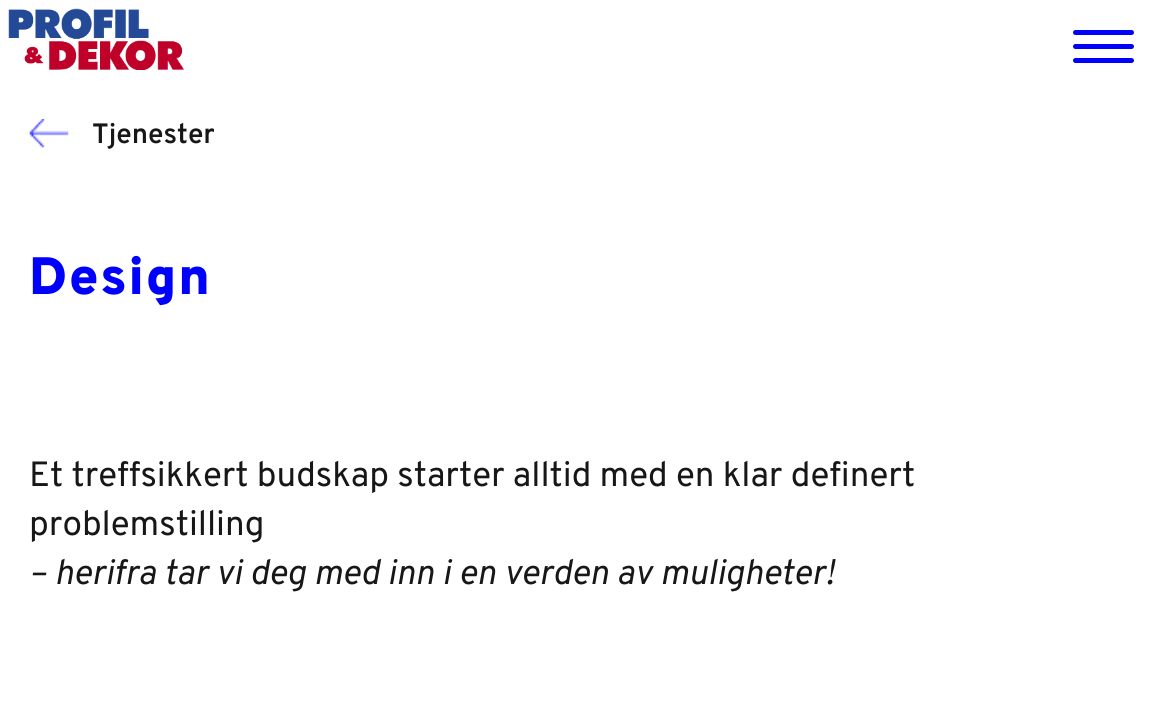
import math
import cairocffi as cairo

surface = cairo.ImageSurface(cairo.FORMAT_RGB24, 1171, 701)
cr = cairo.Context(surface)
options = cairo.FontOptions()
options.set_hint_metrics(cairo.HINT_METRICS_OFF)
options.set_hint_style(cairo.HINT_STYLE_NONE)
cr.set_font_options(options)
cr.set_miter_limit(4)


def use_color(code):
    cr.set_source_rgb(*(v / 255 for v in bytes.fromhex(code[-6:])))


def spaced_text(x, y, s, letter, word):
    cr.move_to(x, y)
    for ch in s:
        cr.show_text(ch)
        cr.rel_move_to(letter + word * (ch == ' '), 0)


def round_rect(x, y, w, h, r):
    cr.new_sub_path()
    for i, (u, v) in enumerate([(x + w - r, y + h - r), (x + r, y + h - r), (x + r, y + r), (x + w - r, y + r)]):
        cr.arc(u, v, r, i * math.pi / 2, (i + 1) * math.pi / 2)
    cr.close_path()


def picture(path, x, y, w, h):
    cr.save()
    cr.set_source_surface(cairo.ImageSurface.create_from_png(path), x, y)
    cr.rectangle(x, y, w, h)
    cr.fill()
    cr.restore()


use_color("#ffffff")
cr.paint()
use_color("#0000ff")
round_rect(1073, 44, 61, 5, 2.5)
cr.fill()
round_rect(1073, 30, 61, 5, 2.5)
cr.fill()
round_rect(1073, 58, 61, 5, 2.5)
cr.fill()
picture("img1.png", 8, 8, 176, 62)
picture("img2.png", 29, 119, 40, 29)
cr.select_font_face("Overpass SemiBold")
cr.set_font_size(28)
use_color("#171717")
cr.move_to(92, 143)
cr.show_text("Tjenester")
cr.select_font_face("Overpass Black")
cr.set_font_size(52.5)
use_color("#0000ff")
spaced_text(29, 294, "Design", 1.5, 0)
cr.select_font_face("Overpass")
cr.set_font_size(35)
use_color("#171717")
cr.move_to(29, 486)
cr.show_text("Et treffsikkert budskap starter alltid med en klar definert")
cr.move_to(29, 535)
cr.show_text("problemstilling")
cr.select_font_face("Overpass", cairo.FONT_SLANT_ITALIC)
cr.move_to(29, 584)
cr.show_text("– herifra tar vi deg med inn i en verden av muligheter!")
surface.write_to_png("result.png")
